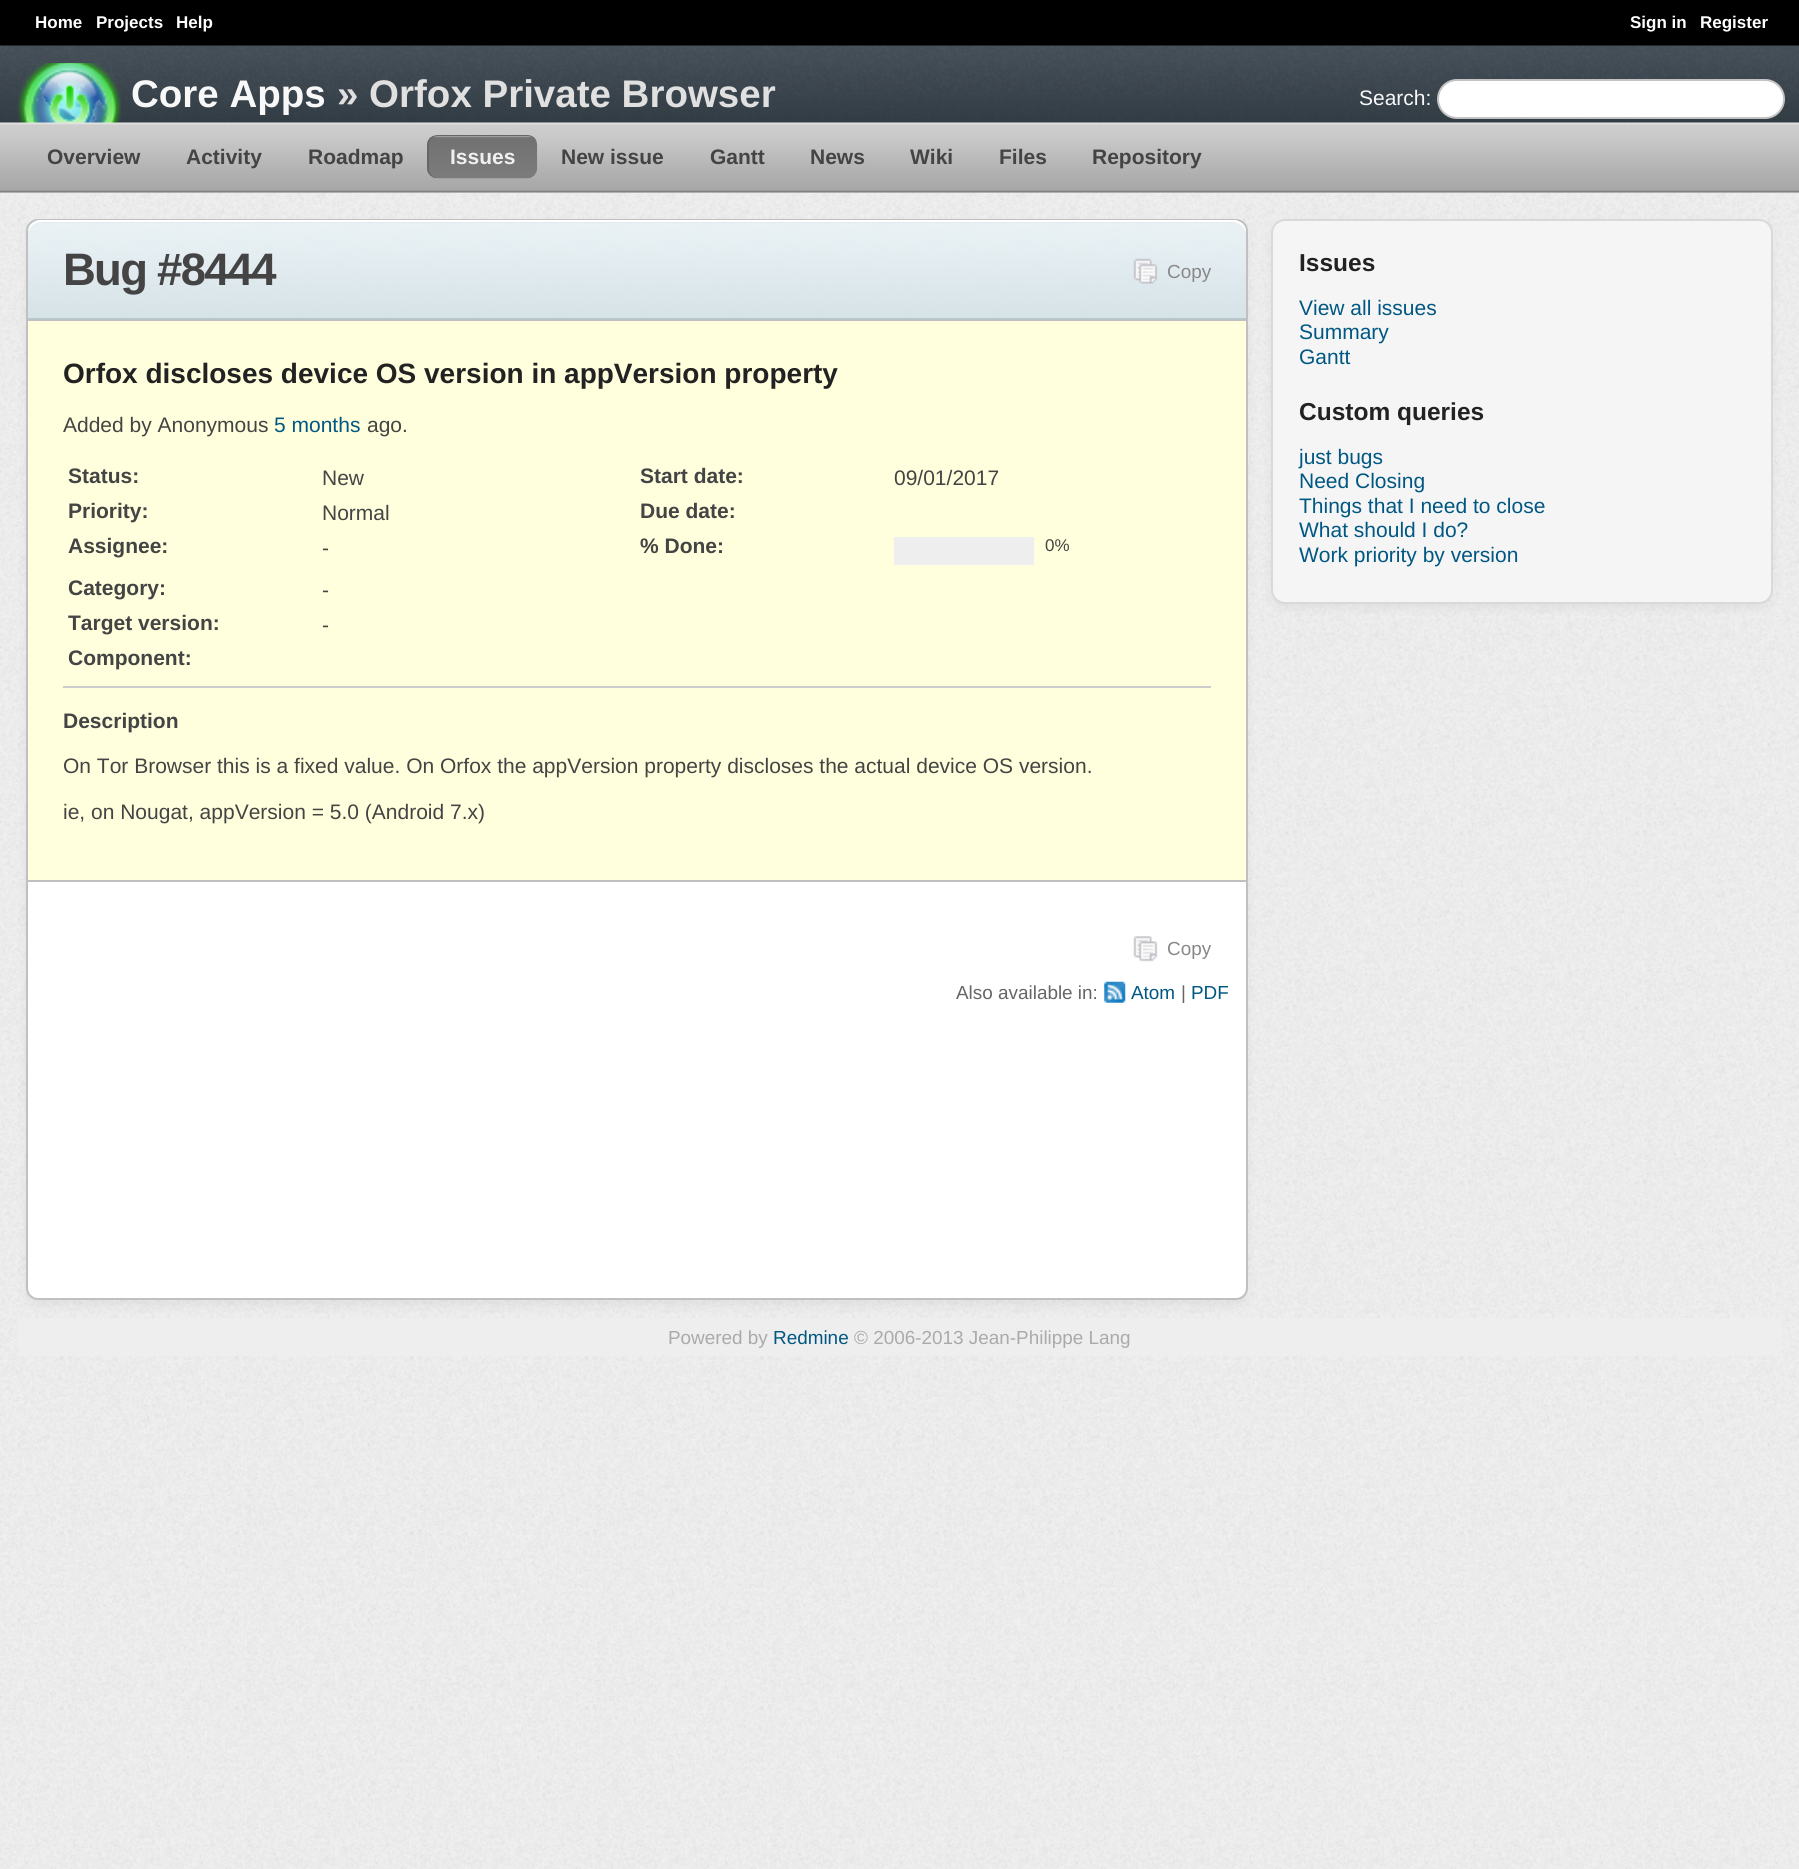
import math
import cairocffi as cairo

surface = cairo.ImageSurface(cairo.FORMAT_RGB24, 1799, 1869)
cr = cairo.Context(surface)
options = cairo.FontOptions()
options.set_hint_metrics(cairo.HINT_METRICS_OFF)
options.set_hint_style(cairo.HINT_STYLE_NONE)
cr.set_font_options(options)
cr.set_miter_limit(4)


def use_color(code):
    cr.set_source_rgb(*(v / 255 for v in bytes.fromhex(code[-6:])))


def spaced_text(x, y, s, letter, word):
    cr.move_to(x, y)
    for ch in s:
        cr.show_text(ch)
        cr.rel_move_to(letter + word * (ch == ' '), 0)


def round_rect(x, y, w, h, r):
    cr.new_sub_path()
    for i, (u, v) in enumerate([(x + w - r, y + h - r), (x + r, y + h - r), (x + r, y + r), (x + w - r, y + r)]):
        cr.arc(u, v, r, i * math.pi / 2, (i + 1) * math.pi / 2)
    cr.close_path()


def shadow(x, y, w, h, r, blur, alpha):
    cr.push_group_with_content(cairo.CONTENT_ALPHA)
    cr.set_operator(cairo.OPERATOR_SOURCE)
    for i in range(15, -16, -2):
        e = blur * i / 6
        if min(w, h) + 2 * e > 0:
            cr.set_source_rgba(0, 0, 0, alpha * math.erfc((i - 1) / 8.5) / 2)
            round_rect(x - e, y - e, w + 2 * e, h + 2 * e, max(0, min(r + e + blur * .6, min(w, h) / 2 + e)))
            cr.fill()
    cr.mask(cr.pop_group())


def picture(path, x, y, w, h):
    cr.save()
    cr.set_source_surface(cairo.ImageSurface.create_from_png(path), x, y)
    cr.rectangle(x, y, w, h)
    cr.fill()
    cr.restore()


use_color("#ffffff")
cr.paint()
picture("img1.png", 0, 1356, 1799, 513)
picture("img2.png", 0, 193, 1799, 1163)
use_color("#000000")
cr.rectangle(0, 0, 1799, 46)
cr.fill()
cr.select_font_face("Liberation Sans", cairo.FONT_SLANT_NORMAL, cairo.FONT_WEIGHT_BOLD)
cr.set_font_size(17)
use_color("#ffffff")
cr.move_to(35, 28)
cr.show_text("Home")
cr.move_to(96, 28)
cr.show_text("Projects")
cr.move_to(176, 28)
cr.show_text("Help")
cr.move_to(1630, 28)
cr.show_text("Sign in")
cr.move_to(1700, 28)
cr.show_text("Register")
picture("img3.png", 0, 45, 1799, 78)
picture("img4.png", 17, 63, 104, 60)
cr.set_font_size(38.5)
use_color("#f8f8f8")
cr.move_to(131, 107)
cr.show_text("Core Apps")
use_color("#e0e0e0")
cr.move_to(337, 107)
cr.show_text("» Orfox Private Browser")
cr.select_font_face("Liberation Sans")
cr.set_font_size(21)
use_color("#f8f8f8")
cr.move_to(1359, 105)
cr.show_text("Search:")
use_color("#ffffff")
round_rect(1438, 80, 346, 38, 19)
cr.fill_preserve()
use_color("#c3c3c3")
cr.stroke()
use_color("#e0e0e0")
cr.rectangle(0, 192, 1799, 1)
cr.fill()
picture("img5.png", 0, 122, 1799, 71)
cr.select_font_face("Liberation Sans", cairo.FONT_SLANT_NORMAL, cairo.FONT_WEIGHT_BOLD)
use_color("#444444")
cr.move_to(47, 164)
cr.show_text("Overview")
cr.move_to(186, 164)
cr.show_text("Activity")
cr.move_to(308, 164)
cr.show_text("Roadmap")
picture("img6.png", 427, 136, 111, 43)
use_color("#666666")
cr.set_fill_rule(cairo.FILL_RULE_EVEN_ODD)
cr.new_path()
cr.move_to(438, 135)
cr.line_to(527, 135)
cr.curve_to(533, 135, 537, 139, 537, 145)
cr.line_to(537, 168)
cr.curve_to(537, 174, 533, 178, 527, 178)
cr.line_to(438, 178)
cr.curve_to(432, 178, 427, 174, 427, 168)
cr.line_to(427, 145)
cr.curve_to(427, 139, 432, 135, 438, 135)
cr.close_path()
cr.move_to(438, 136)
cr.line_to(527, 136)
cr.curve_to(533, 136, 537, 140, 537, 145)
cr.line_to(537, 168)
cr.curve_to(537, 174, 533, 178, 527, 178)
cr.line_to(438, 178)
cr.curve_to(433, 178, 429, 174, 429, 168)
cr.line_to(429, 145)
cr.curve_to(429, 140, 433, 136, 438, 136)
cr.close_path()
cr.fill()
use_color("#f0f0f0")
cr.move_to(450, 164)
cr.show_text("Issues")
use_color("#444444")
cr.move_to(561, 164)
cr.show_text("New issue")
cr.move_to(710, 164)
cr.show_text("Gantt")
cr.move_to(810, 164)
cr.show_text("News")
cr.move_to(910, 164)
cr.show_text("Wiki")
cr.move_to(999, 164)
cr.show_text("Files")
cr.move_to(1092, 164)
cr.show_text("Repository")
use_color("#000000")
shadow(26, 224, 1222, 1082, 12, 4.5, 0.05)
use_color("#ffffff")
round_rect(27, 220, 1220, 1079, 11)
cr.fill_preserve()
use_color("#c0c0c0")
cr.stroke()
picture("img7.png", 28, 222, 1218, 96)
use_color("#ffffff")
cr.set_fill_rule(cairo.FILL_RULE_WINDING)
cr.new_path()
cr.move_to(42, 222)
cr.curve_to(34, 222, 28, 228, 28, 234)
cr.curve_to(28, 228, 32, 222, 38, 220)
cr.line_to(1236, 220)
cr.curve_to(1242, 222, 1246, 228, 1246, 234)
cr.curve_to(1246, 228, 1240, 222, 1232, 222)
cr.close_path()
cr.fill()
use_color("#aeccd7")
cr.rectangle(28, 318, 1218, 1)
cr.fill()
cr.set_font_size(45.5)
use_color("#444444")
spaced_text(63, 285, "Bug #8444", -1.75, 0)
picture("img8.png", 1133, 258, 25, 26)
cr.select_font_face("Liberation Sans")
cr.set_font_size(18.9)
use_color("#888888")
cr.move_to(1167, 278)
cr.show_text("Copy")
use_color("#ffffdd")
cr.rectangle(27, 320, 1220, 561)
cr.fill_preserve()
use_color("#c0c0c0")
cr.stroke()
cr.select_font_face("Liberation Sans", cairo.FONT_SLANT_NORMAL, cairo.FONT_WEIGHT_BOLD)
cr.set_font_size(28)
use_color("#222222")
cr.move_to(63, 383)
cr.show_text("Orfox discloses device OS version in appVersion property")
cr.select_font_face("Liberation Sans")
cr.set_font_size(21)
use_color("#444444")
cr.move_to(63, 432)
cr.show_text("Added by Anonymous")
use_color("#005782")
cr.move_to(274, 432)
cr.show_text("5 months")
use_color("#444444")
cr.move_to(367, 432)
cr.show_text("ago.")
cr.select_font_face("Liberation Sans", cairo.FONT_SLANT_NORMAL, cairo.FONT_WEIGHT_BOLD)
cr.move_to(68, 483)
cr.show_text("Status:")
cr.select_font_face("Liberation Sans")
cr.move_to(322, 485)
cr.show_text("New")
cr.select_font_face("Liberation Sans", cairo.FONT_SLANT_NORMAL, cairo.FONT_WEIGHT_BOLD)
cr.move_to(640, 483)
cr.show_text("Start date:")
cr.select_font_face("Liberation Sans")
cr.move_to(894, 485)
cr.show_text("09/01/2017")
cr.select_font_face("Liberation Sans", cairo.FONT_SLANT_NORMAL, cairo.FONT_WEIGHT_BOLD)
cr.move_to(68, 518)
cr.show_text("Priority:")
cr.select_font_face("Liberation Sans")
cr.move_to(322, 520)
cr.show_text("Normal")
cr.select_font_face("Liberation Sans", cairo.FONT_SLANT_NORMAL, cairo.FONT_WEIGHT_BOLD)
cr.move_to(640, 518)
cr.show_text("Due date:")
cr.move_to(68, 553)
cr.show_text("Assignee:")
cr.select_font_face("Liberation Sans")
cr.move_to(322, 555)
cr.show_text("-")
cr.select_font_face("Liberation Sans", cairo.FONT_SLANT_NORMAL, cairo.FONT_WEIGHT_BOLD)
cr.move_to(640, 553)
cr.show_text("% Done:")
use_color("#eeeeee")
cr.rectangle(894, 537, 140, 28)
cr.fill()
cr.select_font_face("Liberation Sans")
cr.set_font_size(17)
use_color("#444444")
cr.move_to(1045, 551)
cr.show_text("0%")
cr.select_font_face("Liberation Sans", cairo.FONT_SLANT_NORMAL, cairo.FONT_WEIGHT_BOLD)
cr.set_font_size(21)
cr.move_to(68, 595)
cr.show_text("Category:")
cr.select_font_face("Liberation Sans")
cr.move_to(322, 597)
cr.show_text("-")
cr.select_font_face("Liberation Sans", cairo.FONT_SLANT_NORMAL, cairo.FONT_WEIGHT_BOLD)
cr.move_to(68, 630)
cr.show_text("Target version:")
cr.select_font_face("Liberation Sans")
cr.move_to(322, 632)
cr.show_text("-")
cr.select_font_face("Liberation Sans", cairo.FONT_SLANT_NORMAL, cairo.FONT_WEIGHT_BOLD)
cr.move_to(68, 665)
cr.show_text("Component:")
use_color("#cccccc")
cr.rectangle(63, 686, 1148, 2)
cr.fill()
use_color("#444444")
cr.move_to(63, 728)
cr.show_text("Description")
cr.select_font_face("Liberation Sans")
cr.move_to(63, 773)
cr.show_text("On Tor Browser this is a fixed value. On Orfox the appVersion property discloses the actual device OS version.")
cr.move_to(63, 819)
cr.show_text("ie, on Nougat, appVersion = 5.0 (Android 7.x)")
picture("img9.png", 1133, 936, 25, 26)
cr.set_font_size(18.9)
use_color("#888888")
cr.move_to(1167, 955)
cr.show_text("Copy")
use_color("#666666")
cr.move_to(956, 999)
cr.show_text("Also available in:")
picture("img10.png", 1104, 981, 22, 22)
use_color("#005782")
cr.move_to(1131, 999)
cr.show_text("Atom")
use_color("#666666")
cr.move_to(1181, 999)
cr.show_text("|")
use_color("#005782")
cr.move_to(1191, 999)
cr.show_text("PDF")
use_color("#000000")
shadow(1271, 224, 502, 385, 14, 4.5, 0.05)
use_color("#f5f5f5")
round_rect(1272, 220, 500, 383, 13)
cr.fill_preserve()
use_color("#d9d9d9")
cr.stroke()
cr.select_font_face("Liberation Sans", cairo.FONT_SLANT_NORMAL, cairo.FONT_WEIGHT_BOLD)
cr.set_font_size(24.5)
use_color("#222222")
cr.move_to(1299, 271)
cr.show_text("Issues")
cr.select_font_face("Liberation Sans")
cr.set_font_size(21)
use_color("#005782")
cr.move_to(1299, 315)
cr.show_text("View all issues")
cr.move_to(1299, 339)
cr.show_text("Summary")
cr.move_to(1299, 364)
cr.show_text("Gantt")
cr.select_font_face("Liberation Sans", cairo.FONT_SLANT_NORMAL, cairo.FONT_WEIGHT_BOLD)
cr.set_font_size(24.5)
use_color("#222222")
cr.move_to(1299, 420)
cr.show_text("Custom queries")
cr.select_font_face("Liberation Sans")
cr.set_font_size(21)
use_color("#005782")
cr.move_to(1299, 464)
cr.show_text("just bugs")
cr.move_to(1299, 488)
cr.show_text("Need Closing")
cr.move_to(1299, 513)
cr.show_text("Things that I need to close")
cr.move_to(1299, 537)
cr.show_text("What should I do?")
cr.move_to(1299, 562)
cr.show_text("Work priority by version")
use_color("#eeeeee")
cr.rectangle(18, 1318, 1764, 38)
cr.fill()
cr.set_font_size(18.9)
use_color("#aaaaaa")
cr.move_to(668, 1344)
cr.show_text("Powered by")
use_color("#005782")
cr.move_to(773, 1344)
cr.show_text("Redmine")
use_color("#aaaaaa")
cr.move_to(854, 1344)
cr.show_text("© 2006-2013 Jean-Philippe Lang")
surface.write_to_png("result.png")
